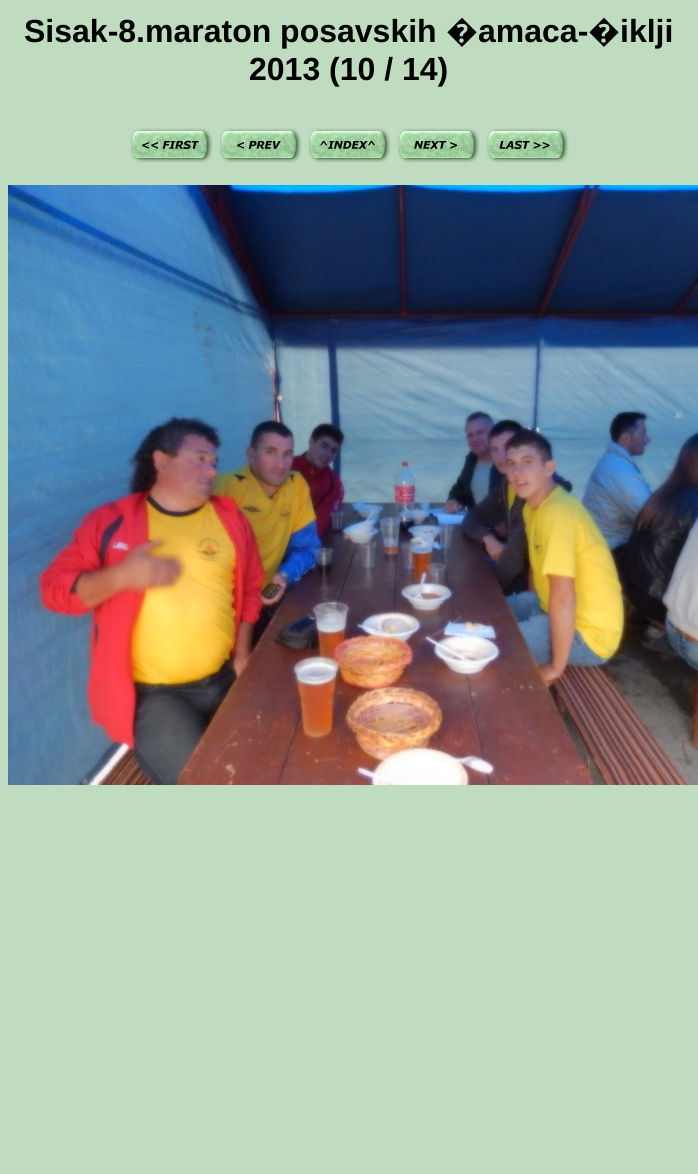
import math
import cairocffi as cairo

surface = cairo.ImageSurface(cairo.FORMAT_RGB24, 698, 1174)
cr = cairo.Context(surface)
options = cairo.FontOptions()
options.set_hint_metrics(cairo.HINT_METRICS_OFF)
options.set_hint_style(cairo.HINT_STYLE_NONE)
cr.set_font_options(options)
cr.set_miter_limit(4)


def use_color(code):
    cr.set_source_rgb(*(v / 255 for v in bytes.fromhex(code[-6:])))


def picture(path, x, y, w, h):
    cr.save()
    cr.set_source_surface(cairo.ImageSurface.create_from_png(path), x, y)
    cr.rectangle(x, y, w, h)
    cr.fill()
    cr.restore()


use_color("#c0dcc0")
cr.paint()
cr.select_font_face("Liberation Sans", cairo.FONT_SLANT_NORMAL, cairo.FONT_WEIGHT_BOLD)
cr.set_font_size(32)
use_color("#000000")
cr.move_to(24, 42)
cr.show_text("Sisak-8.maraton posavskih")
cr.select_font_face("Noto Sans", cairo.FONT_SLANT_NORMAL, cairo.FONT_WEIGHT_BOLD)
cr.move_to(446, 42)
cr.show_text("�")
cr.select_font_face("Liberation Sans", cairo.FONT_SLANT_NORMAL, cairo.FONT_WEIGHT_BOLD)
cr.move_to(478, 42)
cr.show_text("amaca-")
cr.select_font_face("Noto Sans", cairo.FONT_SLANT_NORMAL, cairo.FONT_WEIGHT_BOLD)
cr.move_to(588, 42)
cr.show_text("�")
cr.select_font_face("Liberation Sans", cairo.FONT_SLANT_NORMAL, cairo.FONT_WEIGHT_BOLD)
cr.move_to(620, 42)
cr.show_text("iklji")
cr.move_to(249, 80)
cr.show_text("2013 (10 / 14)")
picture("img1.png", 130, 128, 83, 35)
picture("img2.png", 219, 128, 83, 35)
picture("img3.png", 308, 128, 83, 35)
picture("img4.png", 397, 128, 83, 35)
picture("img5.png", 486, 128, 83, 35)
picture("img6.png", 8, 185, 690, 600)
surface.write_to_png("result.png")
